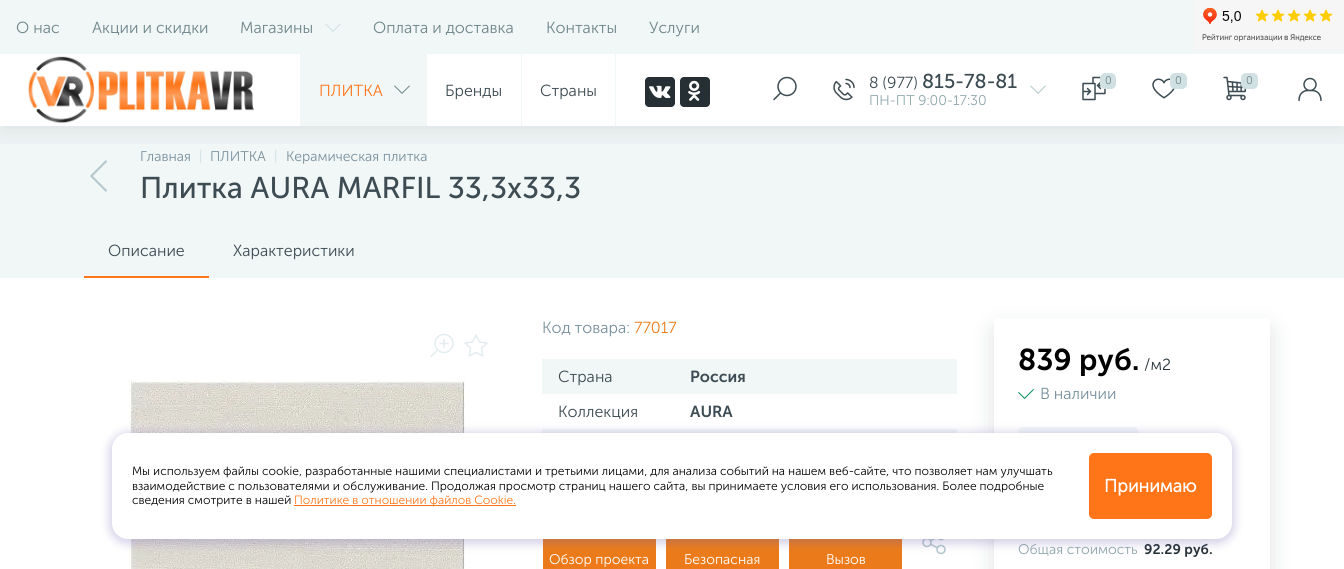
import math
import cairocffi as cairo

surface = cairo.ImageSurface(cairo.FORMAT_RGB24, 1344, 569)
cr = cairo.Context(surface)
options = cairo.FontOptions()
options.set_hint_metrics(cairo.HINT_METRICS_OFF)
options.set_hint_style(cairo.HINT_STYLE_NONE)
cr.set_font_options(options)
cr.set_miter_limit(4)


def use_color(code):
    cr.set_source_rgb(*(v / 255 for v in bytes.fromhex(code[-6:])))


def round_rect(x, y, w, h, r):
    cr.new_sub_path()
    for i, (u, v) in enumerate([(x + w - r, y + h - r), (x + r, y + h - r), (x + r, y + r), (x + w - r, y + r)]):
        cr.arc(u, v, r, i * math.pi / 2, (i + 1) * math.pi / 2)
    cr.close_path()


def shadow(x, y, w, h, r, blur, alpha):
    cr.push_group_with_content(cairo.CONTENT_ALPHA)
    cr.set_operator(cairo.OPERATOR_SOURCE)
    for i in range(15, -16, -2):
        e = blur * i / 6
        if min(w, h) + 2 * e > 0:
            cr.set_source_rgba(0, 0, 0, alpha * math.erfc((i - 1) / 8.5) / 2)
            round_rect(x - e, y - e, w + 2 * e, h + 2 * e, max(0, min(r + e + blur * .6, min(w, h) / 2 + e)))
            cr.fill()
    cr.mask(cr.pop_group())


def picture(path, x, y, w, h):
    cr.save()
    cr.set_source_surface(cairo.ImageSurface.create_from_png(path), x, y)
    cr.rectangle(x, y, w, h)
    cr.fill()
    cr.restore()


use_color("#ffffff")
cr.paint()
use_color("#f1f6f7")
cr.rectangle(0, 126, 1344, 152)
cr.fill()
picture("img14.png", 90, 160, 17, 32)
cr.save()
cr.rectangle(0, 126, 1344, 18)
cr.clip()
use_color("#3d4b52")
shadow(0, 54, 1344, 72, 0, 16, 0.16)
cr.restore()
cr.rectangle(0, 0, 1344, 54)
cr.fill()
cr.select_font_face("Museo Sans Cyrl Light")
cr.set_font_size(16)
use_color("#6e858a")
cr.move_to(16, 33)
cr.show_text("О нас")
cr.move_to(92, 33)
cr.show_text("Акции и скидки")
cr.move_to(240, 33)
cr.show_text("Магазины")
picture("img1.png", 325, 23, 16, 9)
cr.move_to(373, 33)
cr.show_text("Оплата и доставка")
cr.move_to(546, 33)
cr.show_text("Контакты")
cr.move_to(649, 33)
cr.show_text("Услуги")
picture("img2.png", 1194, 0, 150, 50)
picture("img3.png", 28, 56, 226, 68)
use_color("#f1f6f7")
cr.rectangle(300, 54, 1, 72)
cr.fill()
cr.rectangle(301, 54, 126, 72)
cr.fill()
use_color("#ff7518")
cr.move_to(319, 96)
cr.show_text("ПЛИТКА")
picture("img4.png", 394, 85, 16, 9)
use_color("#f1f6f7")
cr.rectangle(521, 54, 1, 72)
cr.fill()
use_color("#3d4b52")
cr.move_to(445, 96)
cr.show_text("Бренды")
use_color("#f1f6f7")
cr.rectangle(615, 54, 1, 72)
cr.fill()
use_color("#3d4b52")
cr.move_to(540, 96)
cr.show_text("Страны")
use_color("#262f34")
round_rect(645, 77, 30, 30, 4)
cr.fill()
picture("img5.png", 649, 85, 22, 13)
round_rect(680, 77, 30, 30, 4)
cr.fill()
picture("img6.png", 688, 80, 13, 21)
picture("img7.png", 773, 76, 24, 25)
picture("img8.png", 833, 78, 22, 23)
use_color("#3d4b52")
cr.move_to(869, 88)
cr.show_text("8 (977)")
cr.select_font_face("Museo Sans Cyrl")
cr.set_font_size(20)
cr.move_to(922, 88)
cr.show_text("815-78-81")
cr.select_font_face("Museo Sans Cyrl Light")
cr.set_font_size(14)
use_color("#8ea6ab")
cr.move_to(869, 105)
cr.show_text("ПН-ПТ 9:00-17:30")
picture("img9.png", 1030, 85, 16, 9)
picture("img10.png", 1082, 76, 24, 25)
use_color("#d0e0e3")
round_rect(1100, 73, 16, 16, 5)
cr.fill()
cr.set_font_size(11)
use_color("#6e858a")
cr.move_to(1105, 84)
cr.show_text("0")
picture("img11.png", 1152, 78, 23, 21)
use_color("#d0e0e3")
round_rect(1170, 73, 17, 16, 5)
cr.fill()
use_color("#6e858a")
cr.move_to(1175, 84)
cr.show_text("0")
picture("img12.png", 1223, 76, 24, 25)
use_color("#d0e0e3")
round_rect(1241, 73, 17, 16, 5)
cr.fill()
use_color("#6e858a")
cr.move_to(1246, 84)
cr.show_text("0")
picture("img13.png", 1298, 77, 24, 25)
cr.set_font_size(14)
use_color("#78909c")
cr.move_to(140, 161)
cr.show_text("Главная")
use_color("#d0e0e3")
cr.move_to(199, 161)
cr.show_text("|")
use_color("#78909c")
cr.move_to(210, 161)
cr.show_text("ПЛИТКА")
use_color("#d0e0e3")
cr.move_to(274, 161)
cr.show_text("|")
use_color("#78909c")
cr.move_to(286, 161)
cr.show_text("Керамическая плитка")
cr.select_font_face("Museo Sans Cyrl")
cr.set_font_size(30)
use_color("#3d4b52")
cr.move_to(140, 198)
cr.show_text("Плитка AURA MARFIL 33,3х33,3")
cr.select_font_face("Museo Sans Cyrl Light")
cr.set_font_size(16)
cr.move_to(108, 256)
cr.show_text("Описание")
use_color("#ff7518")
cr.rectangle(84, 276, 125, 2)
cr.fill()
use_color("#3d4b52")
cr.move_to(233, 256)
cr.show_text("Характеристики")
picture("img15.png", 430, 333, 24, 24)
picture("img16.png", 464, 334, 24, 23)
picture("img17.png", 129, 380, 336, 189)
use_color("#78909c")
cr.move_to(542, 333)
cr.show_text("Код товара:")
use_color("#eb7b1a")
cr.move_to(634, 333)
cr.show_text("77017")
use_color("#f1f6f7")
cr.rectangle(542, 359, 415, 35)
cr.fill()
use_color("#3d4b52")
cr.move_to(558, 382)
cr.show_text("Страна")
cr.select_font_face("Museo Sans Cyrl SemiBold")
cr.move_to(690, 382)
cr.show_text("Россия")
cr.select_font_face("Museo Sans Cyrl Light")
cr.move_to(558, 417)
cr.show_text("Коллекция")
cr.select_font_face("Museo Sans Cyrl SemiBold")
cr.move_to(690, 417)
cr.show_text("AURA")
use_color("#f1f6f7")
cr.rectangle(542, 429, 415, 4)
cr.fill()
picture("img18.png", 922, 539, 24, 16)
use_color("#eb7b1a")
cr.rectangle(543, 539, 113, 30)
cr.fill()
use_color("#ff7518")
cr.rectangle(549, 565, 101, 1)
cr.fill()
cr.select_font_face("Museo Sans Cyrl Light")
cr.set_font_size(14)
use_color("#ffffff")
cr.move_to(549, 564)
cr.show_text("Обзор проекта")
use_color("#eb7b1a")
cr.rectangle(666, 539, 113, 30)
cr.fill()
use_color("#ffffff")
cr.move_to(684, 564)
cr.show_text("Безопасная")
use_color("#ff7518")
cr.rectangle(684, 565, 77, 1)
cr.fill()
use_color("#eb7b1a")
cr.rectangle(789, 539, 113, 30)
cr.fill()
use_color("#ffffff")
cr.move_to(826, 564)
cr.show_text("Вызов")
use_color("#ff7518")
cr.rectangle(826, 565, 39, 1)
cr.fill()
cr.save()
cr.set_fill_rule(cairo.FILL_RULE_EVEN_ODD)
cr.new_path()
cr.move_to(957, 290)
cr.line_to(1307, 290)
cr.line_to(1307, 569)
cr.line_to(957, 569)
cr.close_path()
cr.move_to(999, 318)
cr.line_to(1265, 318)
cr.curve_to(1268, 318, 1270, 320, 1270, 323)
cr.line_to(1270, 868)
cr.curve_to(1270, 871, 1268, 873, 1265, 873)
cr.line_to(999, 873)
cr.curve_to(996, 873, 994, 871, 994, 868)
cr.line_to(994, 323)
cr.curve_to(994, 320, 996, 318, 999, 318)
cr.close_path()
cr.clip()
use_color("#3d4b52")
shadow(994, 327, 276, 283, 5, 12, 0.16)
cr.restore()
cr.select_font_face("Museo Sans Cyrl SemiBold")
cr.set_font_size(30)
use_color("#000000")
cr.move_to(1018, 370)
cr.show_text("839 руб.")
cr.select_font_face("Museo Sans Cyrl Light")
cr.set_font_size(16)
use_color("#263238")
cr.move_to(1144, 370)
cr.show_text("/м2")
picture("img19.png", 1018, 389, 16, 10)
use_color("#78909c")
cr.move_to(1040, 399)
cr.show_text("В наличии")
use_color("#f1f6f7")
cr.new_path()
cr.move_to(1023, 427)
cr.line_to(1054, 427)
cr.line_to(1054, 463)
cr.line_to(1023, 463)
cr.curve_to(1020, 463, 1018, 461, 1018, 458)
cr.line_to(1018, 432)
cr.curve_to(1018, 429, 1020, 427, 1023, 427)
cr.close_path()
cr.fill()
cr.rectangle(1054, 427, 48, 6)
cr.fill()
cr.new_path()
cr.move_to(1102, 427)
cr.line_to(1133, 427)
cr.curve_to(1136, 427, 1138, 429, 1138, 432)
cr.line_to(1138, 458)
cr.curve_to(1138, 461, 1136, 463, 1133, 463)
cr.line_to(1102, 463)
cr.close_path()
cr.fill()
cr.set_font_size(14)
use_color("#8ea6ab")
cr.move_to(1018, 554)
cr.show_text("Общая стоимость")
cr.select_font_face("Museo Sans Cyrl SemiBold")
use_color("#263238")
cr.move_to(1144, 554)
cr.show_text("92.29 руб.")
use_color("#7364b2")
shadow(109, 432, 1126, 112, 19, 4.5, 0.3)
use_color("#ffffff")
round_rect(112, 433, 1120, 106, 16)
cr.fill()
cr.select_font_face("Museo Sans Cyrl Light")
cr.set_font_size(12)
use_color("#000000")
cr.move_to(132, 475)
cr.show_text("Мы используем файлы cookie, разработанные нашими специалистами и третьими лицами, для анализа событий на нашем веб-сайте, что позволяет нам улучшать")
cr.move_to(132, 490)
cr.show_text("взаимодействие с пользователями и обслуживание. Продолжая просмотр страниц нашего сайта, вы принимаете условия его использования. Более подробные")
cr.move_to(132, 504)
cr.show_text("сведения смотрите в нашей")
use_color("#ff7518")
cr.rectangle(294, 505, 222, 1)
cr.fill()
cr.move_to(294, 504)
cr.show_text("Политике в отношении файлов Cookie.")
round_rect(1089, 453, 123, 66, 5)
cr.fill()
cr.select_font_face("Museo Sans Cyrl", cairo.FONT_SLANT_NORMAL, cairo.FONT_WEIGHT_BOLD)
cr.set_font_size(18)
use_color("#ffffff")
cr.move_to(1104, 492)
cr.show_text("Принимаю")
surface.write_to_png("result.png")
